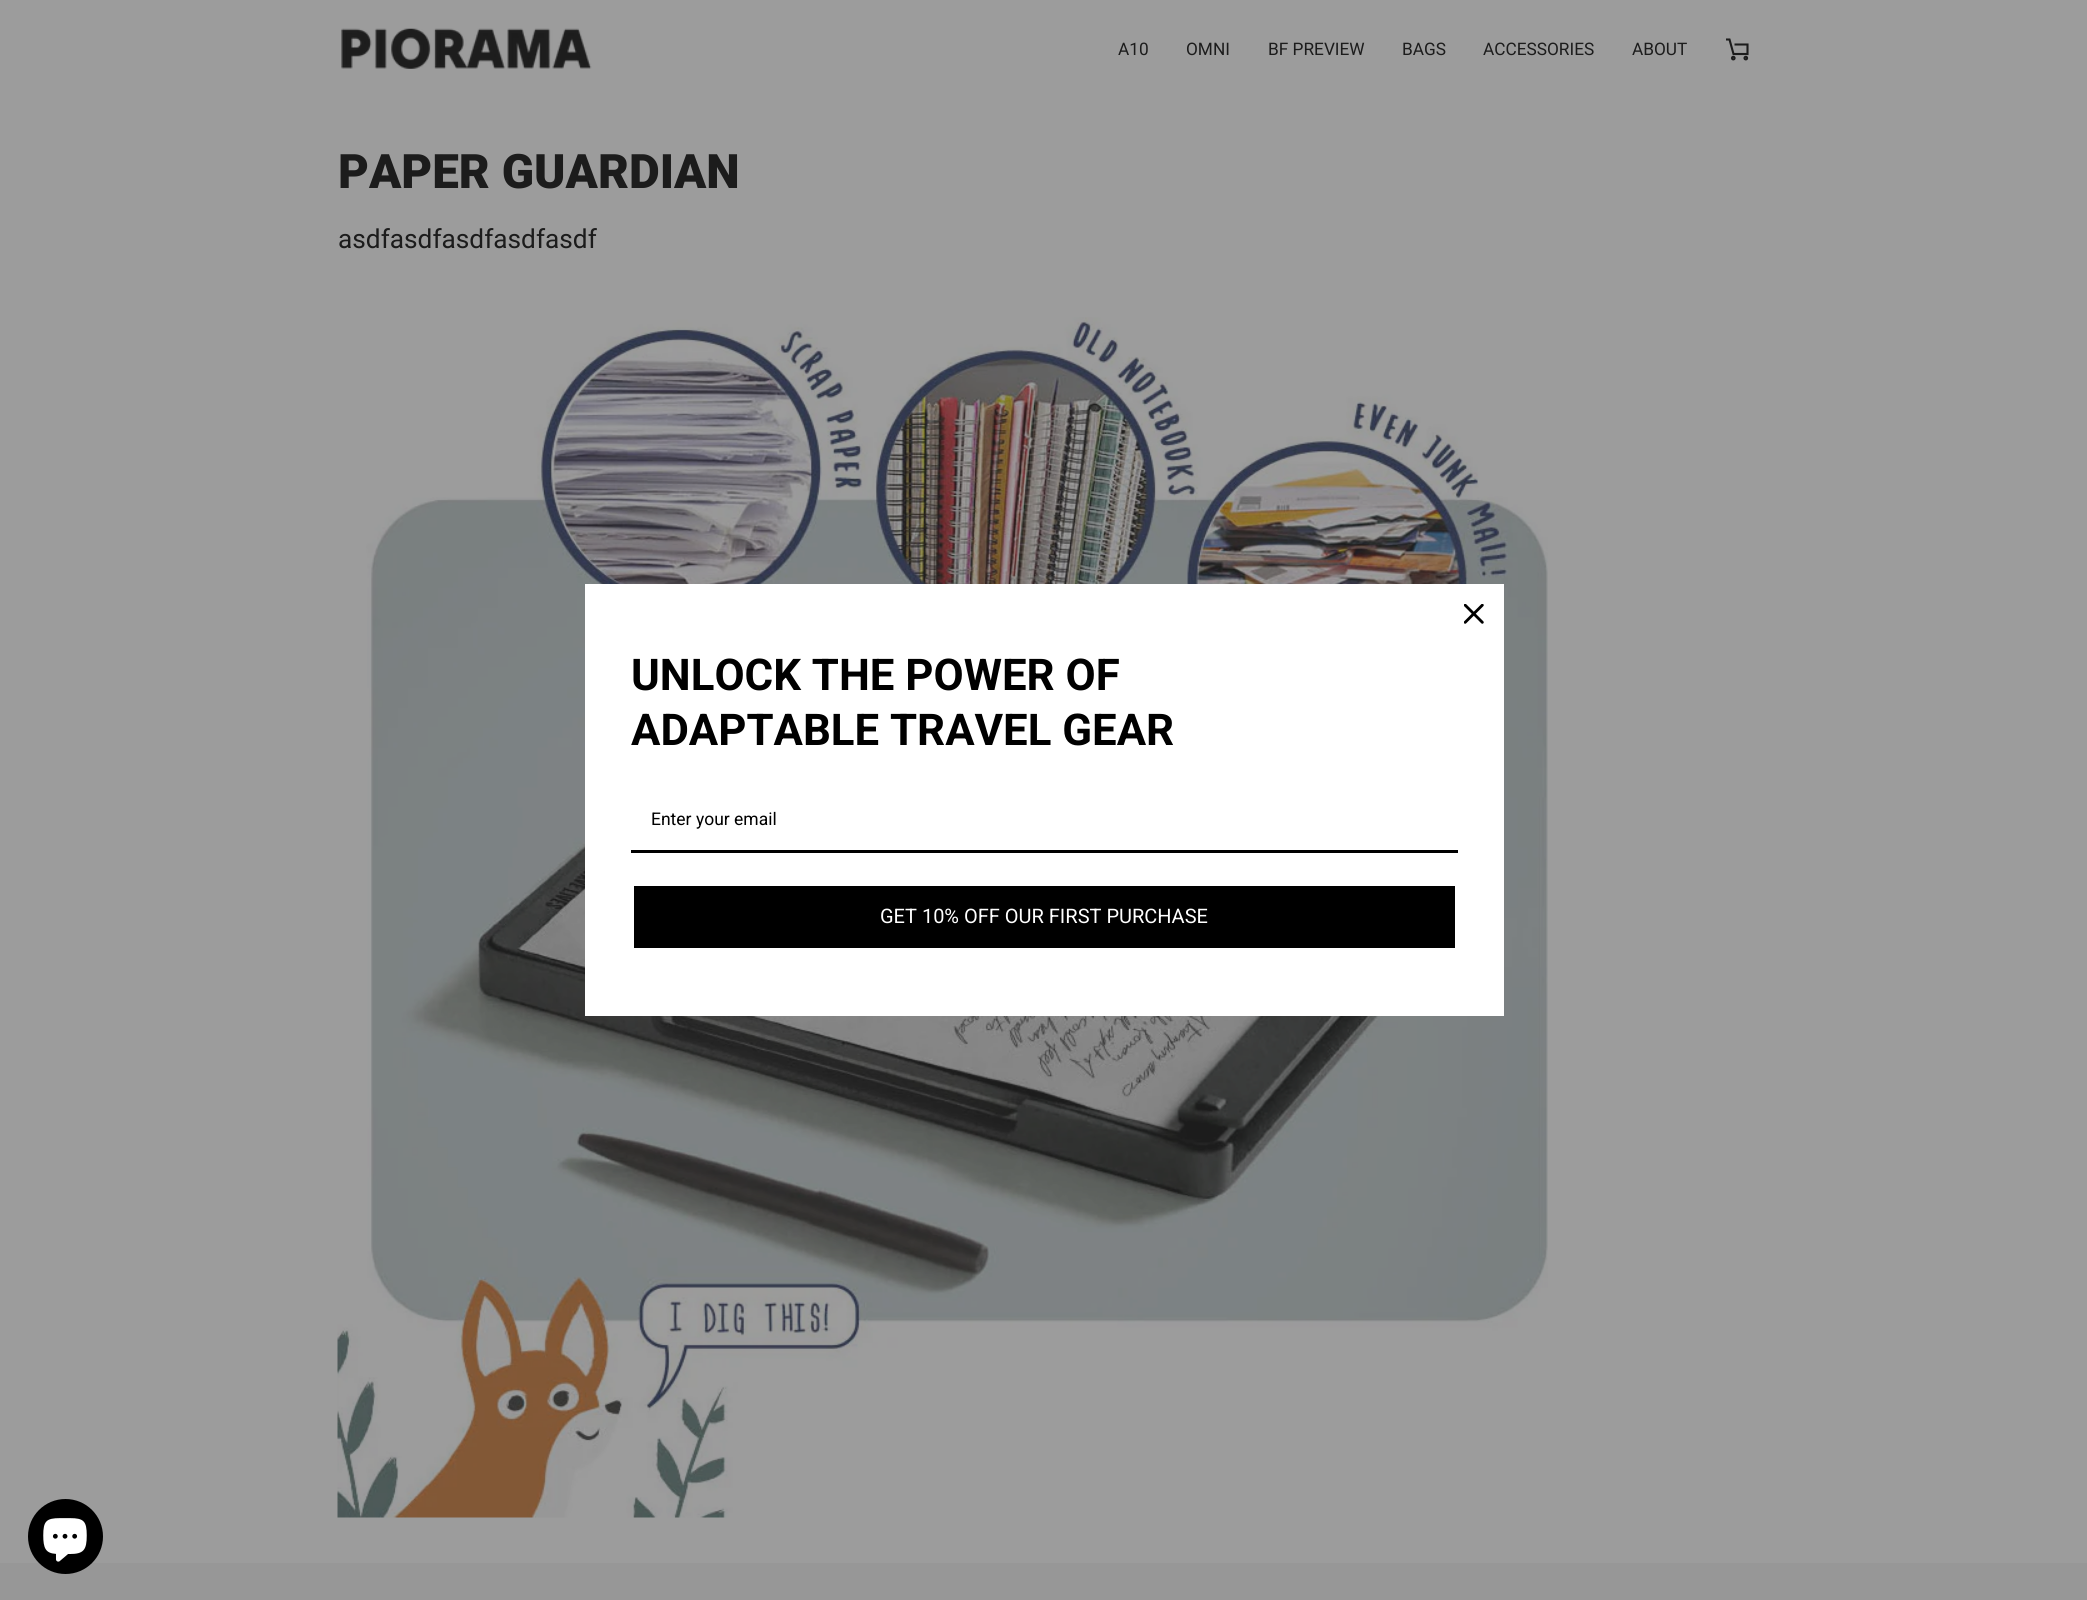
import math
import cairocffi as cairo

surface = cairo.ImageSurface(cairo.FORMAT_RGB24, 2087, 1600)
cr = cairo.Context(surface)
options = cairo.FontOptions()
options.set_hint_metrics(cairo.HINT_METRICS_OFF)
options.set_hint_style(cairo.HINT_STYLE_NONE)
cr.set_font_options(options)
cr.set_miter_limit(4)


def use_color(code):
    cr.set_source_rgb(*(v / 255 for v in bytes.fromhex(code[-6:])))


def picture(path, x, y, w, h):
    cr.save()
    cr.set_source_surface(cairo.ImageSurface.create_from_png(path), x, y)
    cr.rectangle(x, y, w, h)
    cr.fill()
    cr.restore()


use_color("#9c9c9c")
cr.paint()
picture("img1.png", 341, 28, 251, 41)
cr.select_font_face("Roboto")
cr.set_font_size(17.25)
use_color("#1c1c1c")
cr.move_to(1118, 55)
cr.show_text("A10")
cr.move_to(1186, 55)
cr.show_text("OMNI")
cr.move_to(1268, 55)
cr.show_text("BF PREVIEW")
cr.move_to(1402, 55)
cr.show_text("BAGS")
cr.move_to(1483, 55)
cr.show_text("ACCESSORIES")
cr.move_to(1632, 55)
cr.show_text("ABOUT")
cr.new_path()
cr.move_to(1726, 39.5)
cr.line_to(1729.5, 39.5)
cr.line_to(1733.5, 54)
cr.line_to(1747.5, 54)
cr.line_to(1747.5, 44.5)
cr.line_to(1734.5, 44.5)
cr.set_line_width(2.1)
cr.stroke()
cr.arc(1733.3, 58.1, 1.3, 0, 2 * math.pi)
cr.stroke()
cr.arc(1745.8, 58.1, 1.3, 0, 2 * math.pi)
cr.stroke()
cr.select_font_face("Roboto Black")
cr.set_font_size(47.5)
cr.move_to(338, 188)
cr.show_text("PAPER GUARDIAN")
cr.select_font_face("Roboto")
cr.set_font_size(26.25)
cr.move_to(338, 248)
cr.show_text("asdfasdfasdfasdfasdf")
picture("img2.png", 337, 317, 1211, 1201)
use_color("#ffffff")
cr.rectangle(585, 584, 919, 432)
cr.fill()
picture("img3.png", 1464, 604, 20, 20)
cr.select_font_face("Roboto", cairo.FONT_SLANT_NORMAL, cairo.FONT_WEIGHT_BOLD)
cr.set_font_size(43.75)
use_color("#000000")
cr.move_to(631, 690)
cr.show_text("UNLOCK THE POWER OF")
cr.move_to(631, 745)
cr.show_text("ADAPTABLE TRAVEL GEAR")
cr.rectangle(631, 850, 827, 3)
cr.fill()
cr.select_font_face("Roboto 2")
cr.set_font_size(17.5)
cr.move_to(651, 825)
cr.show_text("Enter your email")
cr.rectangle(634, 886, 821, 62)
cr.fill()
cr.set_font_size(20)
use_color("#ffffff")
cr.move_to(880, 923)
cr.show_text("GET 10% OFF OUR FIRST PURCHASE")
use_color("#979797")
cr.rectangle(0, 1563, 2087, 37)
cr.fill()
use_color("#000000")
cr.arc(65.5, 1536.5, 37.5, 0, 2 * math.pi)
cr.fill()
picture("img4.png", 43, 1518, 44, 44)
surface.write_to_png("result.png")
